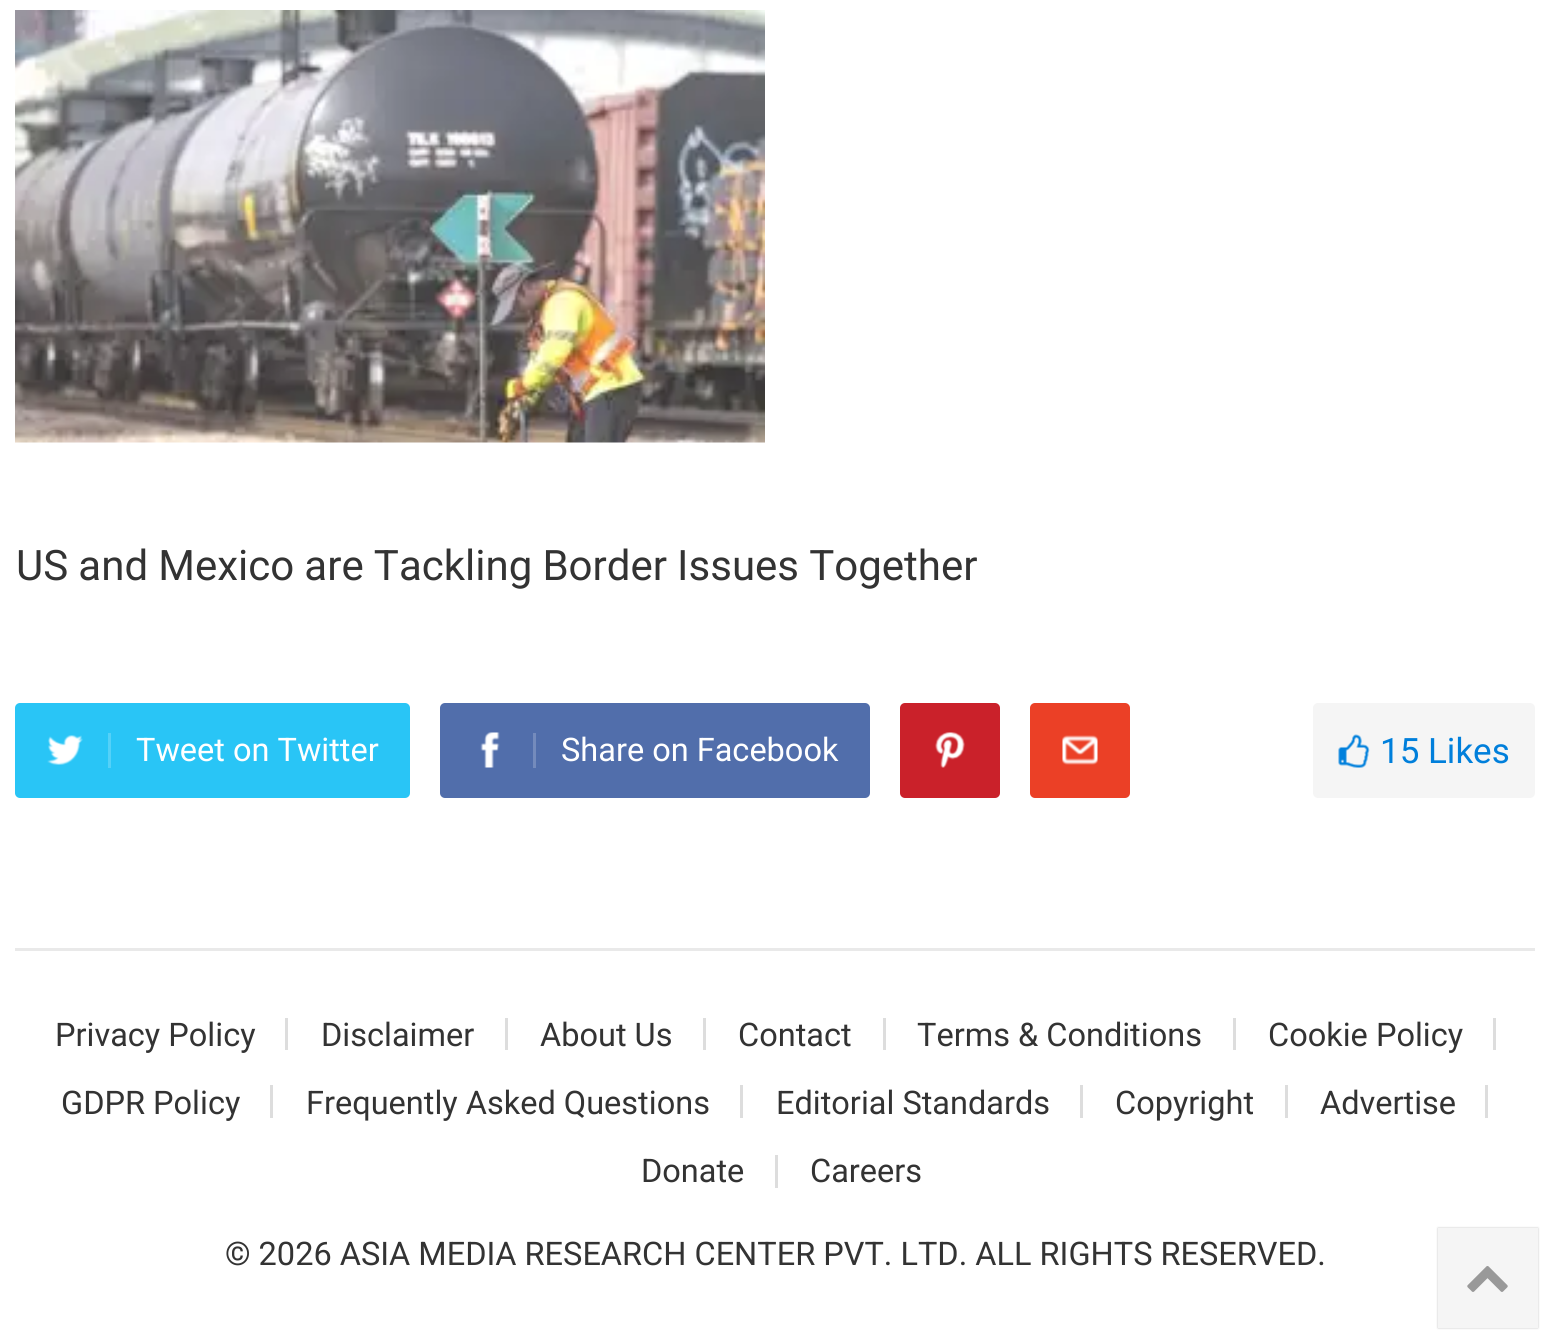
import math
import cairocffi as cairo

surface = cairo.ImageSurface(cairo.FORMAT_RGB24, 1549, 1339)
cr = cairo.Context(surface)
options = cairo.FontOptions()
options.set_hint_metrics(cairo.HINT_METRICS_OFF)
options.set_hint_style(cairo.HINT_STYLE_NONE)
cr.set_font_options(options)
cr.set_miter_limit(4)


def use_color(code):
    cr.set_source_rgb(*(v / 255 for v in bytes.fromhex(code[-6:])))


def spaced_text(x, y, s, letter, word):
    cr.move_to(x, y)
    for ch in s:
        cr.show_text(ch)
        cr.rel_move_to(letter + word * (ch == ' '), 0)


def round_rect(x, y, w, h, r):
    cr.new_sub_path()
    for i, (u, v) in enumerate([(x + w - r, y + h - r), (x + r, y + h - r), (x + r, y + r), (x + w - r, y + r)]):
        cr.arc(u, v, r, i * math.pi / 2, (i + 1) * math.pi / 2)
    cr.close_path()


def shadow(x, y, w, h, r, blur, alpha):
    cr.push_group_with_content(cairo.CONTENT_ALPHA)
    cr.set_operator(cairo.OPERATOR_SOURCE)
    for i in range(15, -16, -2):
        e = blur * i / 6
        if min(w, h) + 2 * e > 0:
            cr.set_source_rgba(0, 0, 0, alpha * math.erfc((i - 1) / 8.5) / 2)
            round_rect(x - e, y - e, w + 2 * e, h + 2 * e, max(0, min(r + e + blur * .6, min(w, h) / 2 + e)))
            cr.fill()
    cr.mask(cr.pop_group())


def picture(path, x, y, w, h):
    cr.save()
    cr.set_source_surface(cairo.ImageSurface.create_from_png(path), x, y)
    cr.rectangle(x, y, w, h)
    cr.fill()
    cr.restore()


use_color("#ffffff")
cr.paint()
picture("img1.png", 15, 10, 750, 433)
cr.select_font_face("Roboto")
cr.set_font_size(42)
use_color("#333333")
spaced_text(16, 580, "US and Mexico are Tackling Border Issues Together", 0, -0.25)
use_color("#29c5f6")
round_rect(15, 703, 395, 95, 5)
cr.fill()
picture("img2.png", 47, 735, 36, 30)
use_color("#54d1f8")
cr.rectangle(108, 733, 3, 35)
cr.fill()
cr.set_font_size(32.5)
use_color("#ffffff")
cr.move_to(136, 761)
cr.show_text("Tweet on Twitter")
use_color("#516eab")
round_rect(440, 703, 430, 95, 5)
cr.fill()
picture("img3.png", 480, 732, 20, 36)
use_color("#748bbc")
cr.rectangle(533, 733, 3, 35)
cr.fill()
use_color("#ffffff")
cr.move_to(561, 761)
cr.show_text("Share on Facebook")
use_color("#ca212a")
round_rect(900, 703, 100, 95, 5)
cr.fill()
picture("img4.png", 935, 732, 30, 36)
use_color("#eb4026")
round_rect(1030, 703, 100, 95, 5)
cr.fill()
picture("img5.png", 1062, 735, 36, 30)
use_color("#f5f5f5")
round_rect(1313, 703, 222, 95, 5)
cr.fill()
picture("img6.png", 1338, 734, 32, 34)
cr.set_font_size(35)
use_color("#007fdb")
cr.move_to(1380, 763)
cr.show_text("15 Likes")
use_color("#e9e9e9")
cr.rectangle(15, 948, 1520, 3)
cr.fill()
use_color("#dddddd")
cr.rectangle(285, 1018, 3, 32)
cr.fill()
cr.set_font_size(32.5)
use_color("#333333")
cr.move_to(55, 1046)
cr.show_text("Privacy Policy")
use_color("#dddddd")
cr.rectangle(505, 1018, 3, 32)
cr.fill()
use_color("#333333")
cr.move_to(321, 1046)
cr.show_text("Disclaimer")
use_color("#dddddd")
cr.rectangle(703, 1018, 3, 32)
cr.fill()
use_color("#333333")
cr.move_to(540, 1046)
cr.show_text("About Us")
use_color("#dddddd")
cr.rectangle(883, 1018, 3, 32)
cr.fill()
use_color("#333333")
cr.move_to(738, 1046)
cr.show_text("Contact")
use_color("#dddddd")
cr.rectangle(1233, 1018, 3, 32)
cr.fill()
use_color("#333333")
cr.move_to(917, 1046)
cr.show_text("Terms & Conditions")
use_color("#dddddd")
cr.rectangle(1493, 1018, 3, 32)
cr.fill()
use_color("#333333")
cr.move_to(1268, 1046)
cr.show_text("Cookie Policy")
use_color("#dddddd")
cr.rectangle(270, 1085, 3, 33)
cr.fill()
use_color("#333333")
cr.move_to(61, 1114)
cr.show_text("GDPR Policy")
use_color("#dddddd")
cr.rectangle(740, 1085, 3, 33)
cr.fill()
use_color("#333333")
cr.move_to(306, 1114)
cr.show_text("Frequently Asked Questions")
use_color("#dddddd")
cr.rectangle(1080, 1085, 3, 33)
cr.fill()
use_color("#333333")
cr.move_to(776, 1114)
cr.show_text("Editorial Standards")
use_color("#dddddd")
cr.rectangle(1285, 1085, 3, 33)
cr.fill()
use_color("#333333")
cr.move_to(1115, 1114)
cr.show_text("Copyright")
use_color("#dddddd")
cr.rectangle(1485, 1085, 3, 33)
cr.fill()
use_color("#333333")
cr.move_to(1320, 1114)
cr.show_text("Advertise")
use_color("#dddddd")
cr.rectangle(775, 1155, 3, 33)
cr.fill()
use_color("#333333")
cr.move_to(641, 1182)
cr.show_text("Donate")
cr.move_to(810, 1182)
cr.show_text("Careers")
cr.move_to(225, 1265)
cr.show_text("© 2026 ASIA MEDIA RESEARCH CENTER PVT. LTD. ALL RIGHTS RESERVED.")
use_color("#000000")
shadow(1438, 1228, 100, 100, 0, 1, 0.25)
use_color("#f5f5f5")
cr.rectangle(1438, 1228, 100, 100)
cr.fill()
picture("img7.png", 1467, 1266, 41, 26)
surface.write_to_png("result.png")
